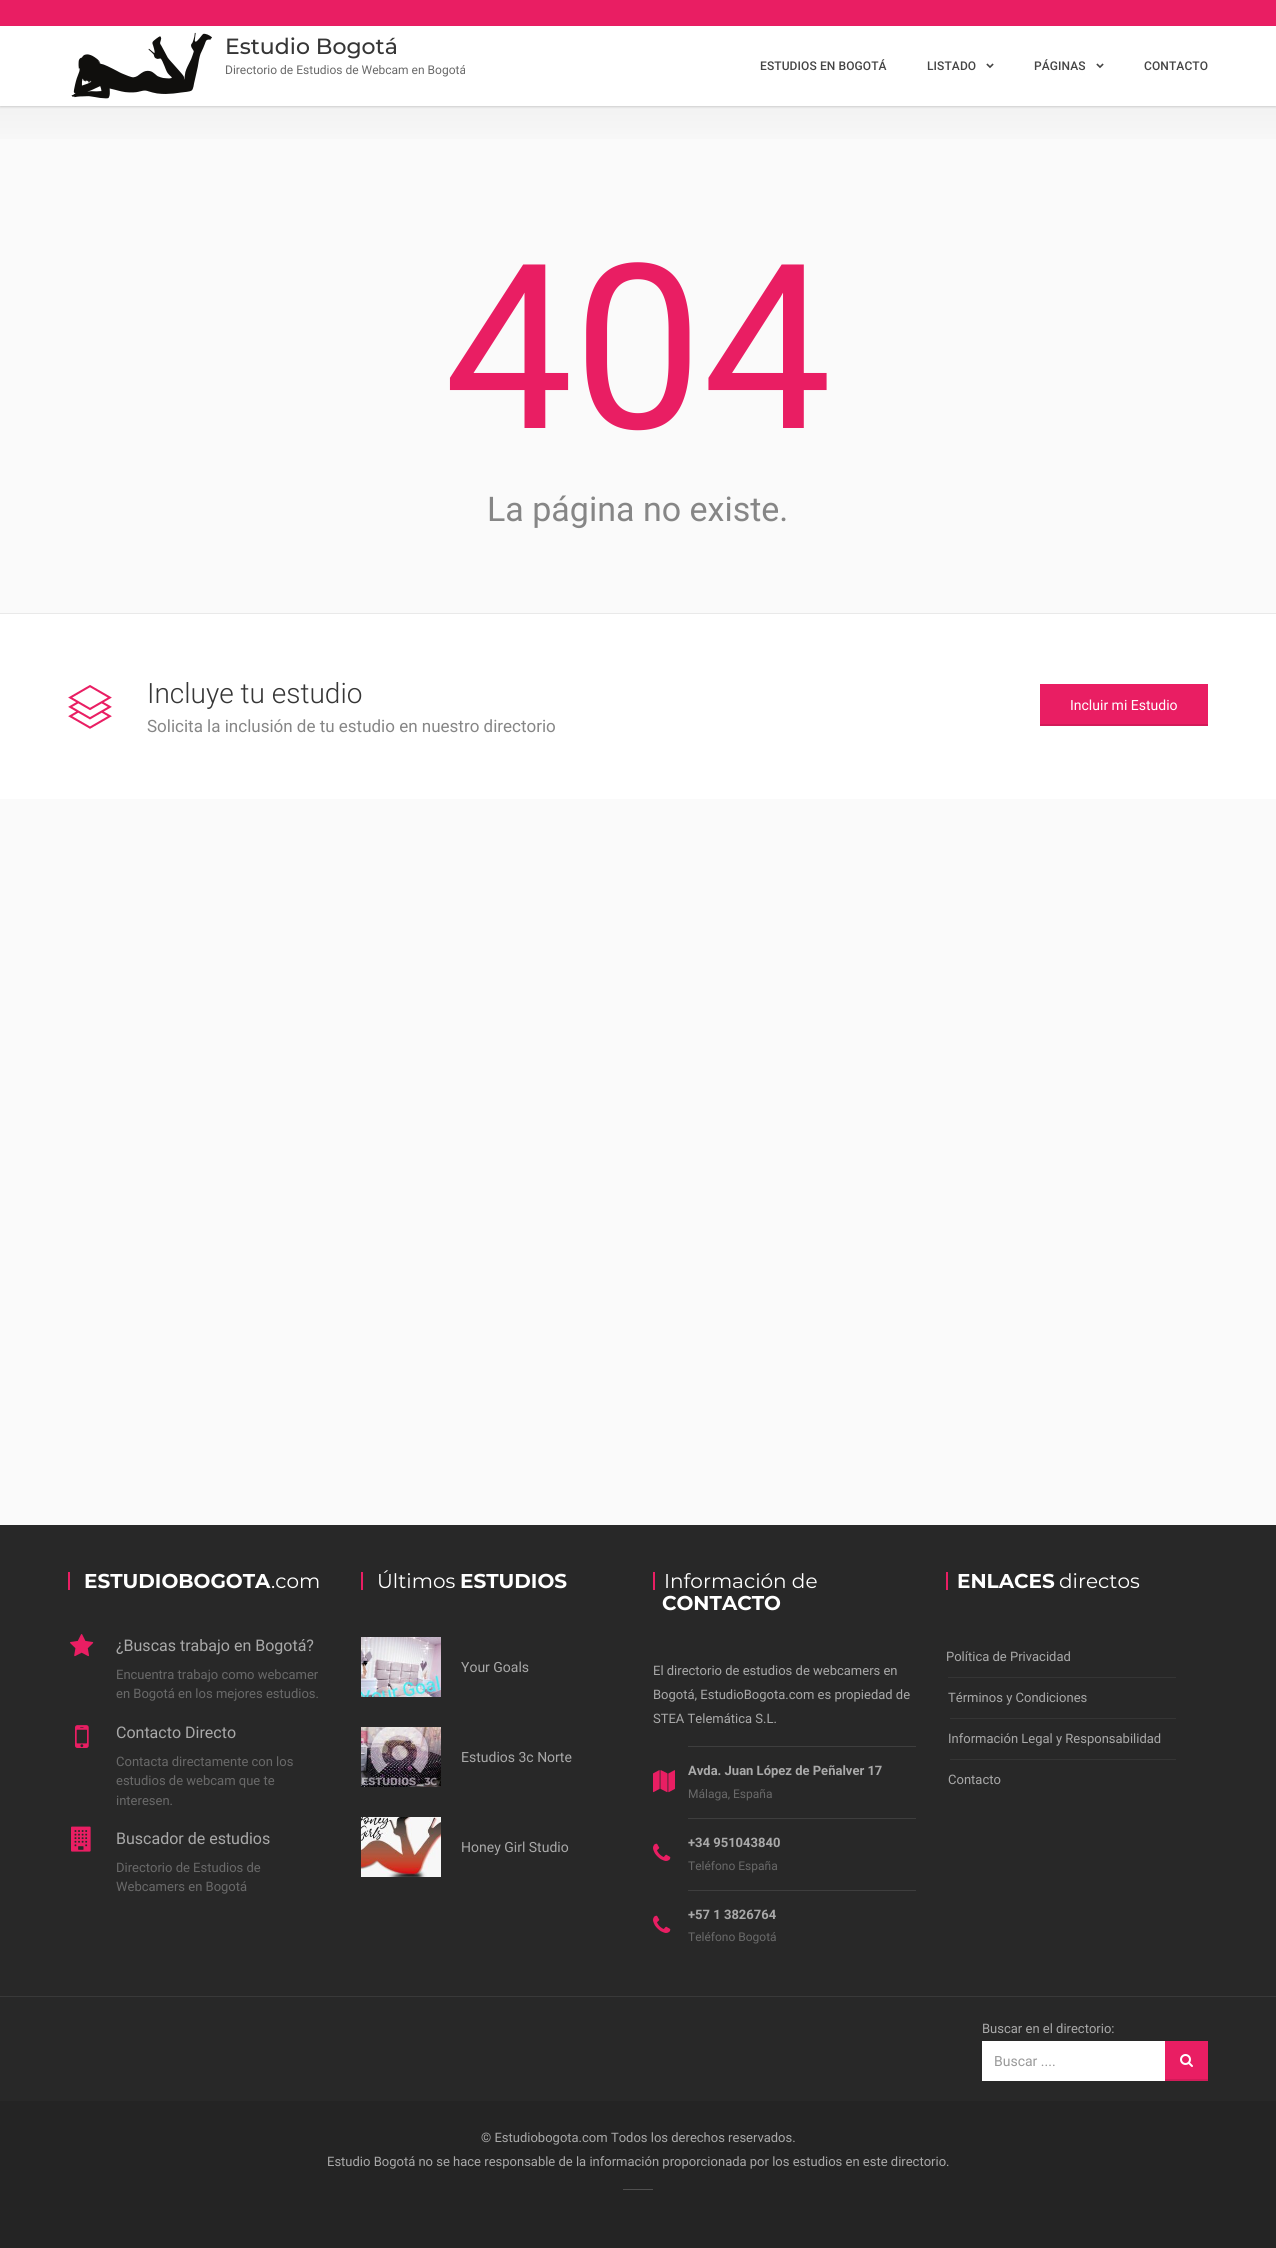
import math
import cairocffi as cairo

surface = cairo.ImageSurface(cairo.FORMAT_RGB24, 1276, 2248)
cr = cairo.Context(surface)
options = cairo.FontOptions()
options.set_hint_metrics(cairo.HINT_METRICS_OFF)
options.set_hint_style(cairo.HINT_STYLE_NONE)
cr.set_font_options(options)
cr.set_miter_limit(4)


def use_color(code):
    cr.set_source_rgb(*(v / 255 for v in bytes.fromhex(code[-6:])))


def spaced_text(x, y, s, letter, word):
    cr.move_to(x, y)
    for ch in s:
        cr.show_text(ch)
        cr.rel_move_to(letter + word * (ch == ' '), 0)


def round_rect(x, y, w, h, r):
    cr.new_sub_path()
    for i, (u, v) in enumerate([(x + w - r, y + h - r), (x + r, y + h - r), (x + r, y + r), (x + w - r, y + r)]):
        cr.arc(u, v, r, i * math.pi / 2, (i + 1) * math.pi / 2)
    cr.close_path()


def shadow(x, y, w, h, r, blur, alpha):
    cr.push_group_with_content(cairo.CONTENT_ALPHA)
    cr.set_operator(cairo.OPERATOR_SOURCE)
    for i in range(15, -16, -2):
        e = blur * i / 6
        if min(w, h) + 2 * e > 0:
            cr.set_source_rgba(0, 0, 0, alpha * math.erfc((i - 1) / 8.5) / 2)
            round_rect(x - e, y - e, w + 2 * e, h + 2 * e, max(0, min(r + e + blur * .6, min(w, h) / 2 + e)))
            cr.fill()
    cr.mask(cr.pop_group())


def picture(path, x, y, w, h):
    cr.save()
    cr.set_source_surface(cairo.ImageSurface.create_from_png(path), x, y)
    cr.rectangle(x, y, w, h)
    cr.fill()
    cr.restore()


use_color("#fafafa")
cr.paint()
use_color("#e91e63")
cr.rectangle(0, 0, 1276, 26)
cr.fill()
gradient = cairo.LinearGradient(638, 106, 638, 799)
gradient.add_color_stop_rgba(0, 0.949, 0.949, 0.949, 1)
gradient.add_color_stop_rgba(0.07, 0.98, 0.98, 0.98, 1)
cr.set_source(gradient)
cr.rectangle(0, 106, 1276, 33)
cr.fill()
use_color("#000000")
shadow(0, 27, 1276, 80, 0, 1, 0.15)
use_color("#ffffff")
cr.rectangle(0, 26, 1276, 80)
cr.fill()
picture("img1.png", 71, 32, 141, 67)
cr.select_font_face("Montserrat Medium")
cr.set_font_size(22)
use_color("#363636")
cr.move_to(225, 54)
cr.show_text("Estudio Bogotá")
cr.select_font_face("Roboto")
cr.set_font_size(12)
use_color("#696969")
cr.move_to(225, 74)
cr.show_text("Directorio de Estudios de Webcam en Bogotá")
cr.select_font_face("Roboto Medium")
use_color("#444444")
spaced_text(760, 70, "ESTUDIOS EN BOGOTÁ", 0.1, 0)
spaced_text(927, 70, "LISTADO", 0.1, 0)
picture("img2.png", 986, 63, 8, 6)
spaced_text(1034, 70, "PÁGINAS", 0.1, 0)
picture("img2.png", 1096, 63, 8, 6)
spaced_text(1144, 70, "CONTACTO", 0.1, 0)
cr.select_font_face("Roboto")
cr.set_font_size(230)
use_color("#e91e63")
cr.move_to(444, 428)
cr.show_text("404")
cr.set_font_size(34)
use_color("#868686")
cr.move_to(487, 521)
cr.show_text("La página no existe.")
use_color("#ffffff")
cr.rectangle(0, 614, 1276, 185)
cr.fill()
use_color("#e9e9e9")
cr.rectangle(0, 613, 1276, 1)
cr.fill()
picture("img3.png", 68, 685, 44, 44)
cr.select_font_face("Roboto Light")
cr.set_font_size(28)
use_color("#363636")
cr.move_to(147, 703)
cr.show_text("Incluye tu estudio")
cr.select_font_face("Roboto")
cr.set_font_size(17)
use_color("#868686")
cr.move_to(147, 732)
cr.show_text("Solicita la inclusión de tu estudio en nuestro directorio")
use_color("#e91e63")
cr.rectangle(1040, 684, 168, 40)
cr.fill()
cr.set_font_size(14)
use_color("#ffffff")
cr.move_to(1070, 710)
cr.show_text("Incluir mi Estudio")
use_color("#d21b59")
cr.rectangle(1040, 724, 168, 2)
cr.fill()
use_color("#282828")
cr.rectangle(0, 1525, 1276, 576)
cr.fill()
use_color("#393939")
cr.rectangle(0, 1996, 1276, 1)
cr.fill()
use_color("#e91e63")
cr.rectangle(68, 1572, 2, 18)
cr.fill()
cr.select_font_face("Montserrat", cairo.FONT_SLANT_NORMAL, cairo.FONT_WEIGHT_BOLD)
cr.set_font_size(20)
use_color("#ffffff")
cr.move_to(84, 1588)
cr.show_text("ESTUDIOBOGOTA")
cr.select_font_face("Montserrat")
cr.move_to(271, 1588)
cr.show_text(".com")
picture("img4.png", 70, 1634, 24, 23)
cr.select_font_face("Roboto")
cr.set_font_size(16)
use_color("#a9a9a9")
cr.move_to(116, 1651)
cr.show_text("¿Buscas trabajo en Bogotá?")
cr.set_font_size(13)
use_color("#696969")
cr.move_to(116, 1679)
cr.show_text("Encuentra trabajo como webcamer")
cr.move_to(116, 1698)
cr.show_text("en Bogotá en los mejores estudios.")
picture("img5.png", 75, 1725, 14, 23)
cr.set_font_size(16)
use_color("#a9a9a9")
cr.move_to(116, 1738)
cr.show_text("Contacto Directo")
cr.set_font_size(13)
use_color("#696969")
cr.move_to(116, 1766)
cr.show_text("Contacta directamente con los")
cr.move_to(116, 1785)
cr.show_text("estudios de webcam que te")
cr.move_to(116, 1805)
cr.show_text("interesen.")
picture("img6.png", 71, 1826, 20, 26)
cr.set_font_size(16)
use_color("#a9a9a9")
cr.move_to(116, 1844)
cr.show_text("Buscador de estudios")
cr.set_font_size(13)
use_color("#696969")
cr.move_to(116, 1872)
cr.show_text("Directorio de Estudios de")
cr.move_to(116, 1891)
cr.show_text("Webcamers en Bogotá")
use_color("#e91e63")
cr.rectangle(361, 1572, 2, 18)
cr.fill()
cr.select_font_face("Montserrat")
cr.set_font_size(20)
use_color("#ffffff")
cr.move_to(377, 1588)
cr.show_text("Últimos")
cr.select_font_face("Montserrat", cairo.FONT_SLANT_NORMAL, cairo.FONT_WEIGHT_BOLD)
cr.move_to(460, 1588)
cr.show_text("ESTUDIOS")
picture("img7.png", 361, 1637, 80, 60)
cr.select_font_face("Roboto")
cr.set_font_size(14)
use_color("#a9a9a9")
cr.move_to(461, 1672)
cr.show_text("Your Goals")
picture("img8.png", 361, 1727, 80, 60)
cr.move_to(461, 1762)
cr.show_text("Estudios 3c Norte")
picture("img9.png", 361, 1817, 80, 60)
cr.move_to(461, 1852)
cr.show_text("Honey Girl Studio")
use_color("#e91e63")
cr.rectangle(653, 1572, 2, 18)
cr.fill()
cr.select_font_face("Montserrat")
cr.set_font_size(20)
use_color("#ffffff")
cr.move_to(664, 1588)
cr.show_text("Información de")
cr.select_font_face("Montserrat", cairo.FONT_SLANT_NORMAL, cairo.FONT_WEIGHT_BOLD)
cr.move_to(662, 1610)
cr.show_text("CONTACTO")
cr.select_font_face("Roboto")
cr.set_font_size(13)
use_color("#a9a9a9")
cr.move_to(653, 1675)
cr.show_text("El directorio de estudios de webcamers en")
cr.move_to(653, 1699)
cr.show_text("Bogotá, EstudioBogota.com es propiedad de")
cr.move_to(653, 1723)
cr.show_text("STEA Telemática S.L.")
use_color("#3e3e3e")
cr.rectangle(688, 1746, 228, 1)
cr.fill()
picture("img10.png", 653, 1770, 22, 23)
cr.select_font_face("Roboto", cairo.FONT_SLANT_NORMAL, cairo.FONT_WEIGHT_BOLD)
use_color("#a9a9a9")
cr.move_to(688, 1775)
cr.show_text("Avda. Juan López de Peñalver 17")
cr.select_font_face("Roboto")
cr.set_font_size(12)
use_color("#696969")
cr.move_to(688, 1798)
cr.show_text("Málaga, España")
use_color("#3e3e3e")
cr.rectangle(688, 1818, 228, 1)
cr.fill()
picture("img11.png", 653, 1843, 18, 18)
cr.select_font_face("Roboto", cairo.FONT_SLANT_NORMAL, cairo.FONT_WEIGHT_BOLD)
cr.set_font_size(13)
use_color("#a9a9a9")
cr.move_to(688, 1847)
cr.show_text("+34 951043840")
cr.select_font_face("Roboto")
cr.set_font_size(12)
use_color("#696969")
cr.move_to(688, 1870)
cr.show_text("Teléfono España")
use_color("#3e3e3e")
cr.rectangle(688, 1890, 228, 1)
cr.fill()
picture("img11.png", 653, 1915, 18, 18)
cr.select_font_face("Roboto", cairo.FONT_SLANT_NORMAL, cairo.FONT_WEIGHT_BOLD)
cr.set_font_size(13)
use_color("#a9a9a9")
cr.move_to(688, 1919)
cr.show_text("+57 1 3826764")
cr.select_font_face("Roboto")
cr.set_font_size(12)
use_color("#696969")
cr.move_to(688, 1941)
cr.show_text("Teléfono Bogotá")
use_color("#e91e63")
cr.rectangle(946, 1572, 2, 18)
cr.fill()
cr.select_font_face("Montserrat", cairo.FONT_SLANT_NORMAL, cairo.FONT_WEIGHT_BOLD)
cr.set_font_size(20)
use_color("#ffffff")
cr.move_to(957, 1588)
cr.show_text("ENLACES")
cr.select_font_face("Montserrat")
cr.move_to(1059, 1588)
cr.show_text("directos")
use_color("#353535")
cr.rectangle(948, 1677, 228, 1)
cr.fill()
cr.select_font_face("Roboto")
cr.set_font_size(13)
use_color("#a9a9a9")
cr.move_to(946, 1661)
cr.show_text("Política de Privacidad")
use_color("#353535")
cr.rectangle(950, 1718, 226, 1)
cr.fill()
use_color("#a9a9a9")
cr.move_to(948, 1702)
cr.show_text("Términos y Condiciones")
use_color("#353535")
cr.rectangle(950, 1759, 226, 1)
cr.fill()
use_color("#a9a9a9")
cr.move_to(948, 1743)
cr.show_text("Información Legal y Responsabilidad")
cr.move_to(948, 1784)
cr.show_text("Contacto")
cr.move_to(982, 2033)
cr.show_text("Buscar en el directorio:")
use_color("#ffffff")
cr.rectangle(982, 2041, 183, 40)
cr.fill()
cr.set_font_size(14)
use_color("#999999")
cr.move_to(994, 2066)
cr.show_text("Buscar ....")
use_color("#e91e63")
cr.rectangle(1165, 2041, 43, 38)
cr.fill()
picture("img12.png", 1180, 2054, 13, 13)
use_color("#d21b59")
cr.rectangle(1165, 2079, 43, 2)
cr.fill()
use_color("#242424")
cr.rectangle(0, 2101, 1276, 147)
cr.fill()
cr.set_font_size(13)
use_color("#a9a9a9")
cr.move_to(481, 2142)
cr.show_text("© Estudiobogota.com Todos los derechos reservados.")
cr.move_to(327, 2166)
cr.show_text("Estudio Bogotá no se hace responsable de la información proporcionada por los estudios en este directorio.")
use_color("#505050")
cr.rectangle(623, 2189, 30, 1)
cr.fill()
surface.write_to_png("result.png")
